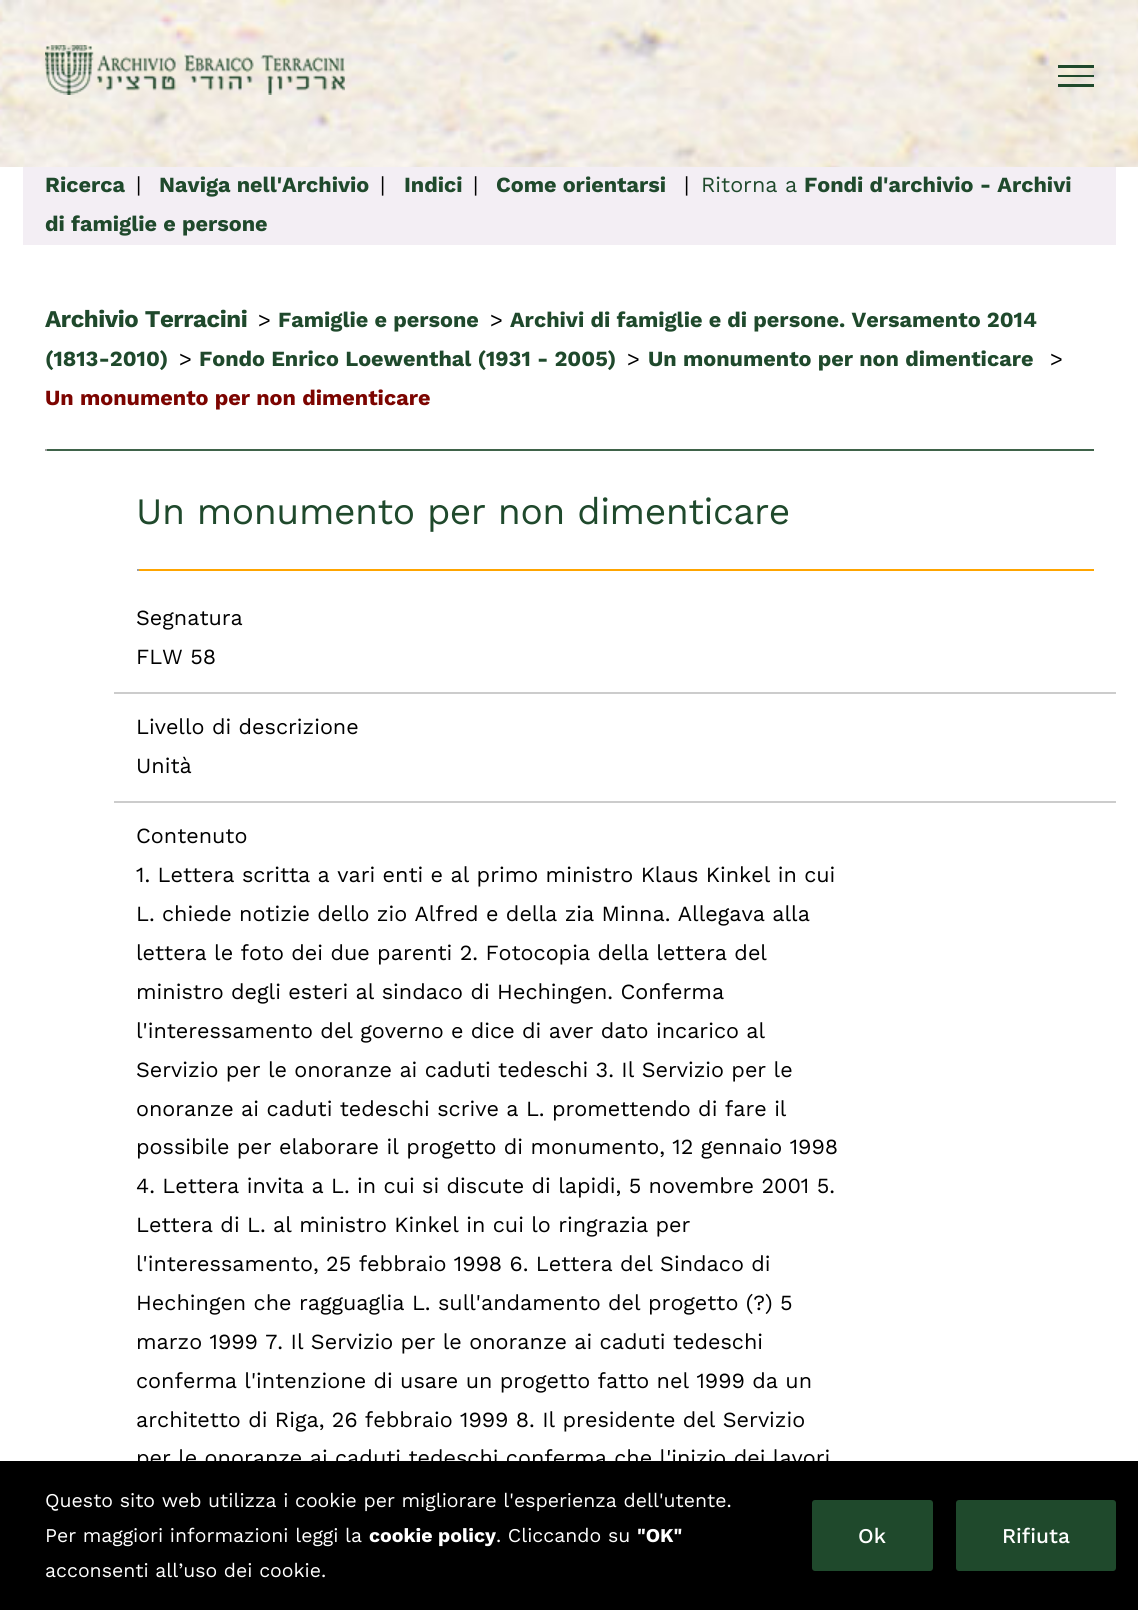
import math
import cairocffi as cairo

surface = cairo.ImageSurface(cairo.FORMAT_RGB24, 1138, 1610)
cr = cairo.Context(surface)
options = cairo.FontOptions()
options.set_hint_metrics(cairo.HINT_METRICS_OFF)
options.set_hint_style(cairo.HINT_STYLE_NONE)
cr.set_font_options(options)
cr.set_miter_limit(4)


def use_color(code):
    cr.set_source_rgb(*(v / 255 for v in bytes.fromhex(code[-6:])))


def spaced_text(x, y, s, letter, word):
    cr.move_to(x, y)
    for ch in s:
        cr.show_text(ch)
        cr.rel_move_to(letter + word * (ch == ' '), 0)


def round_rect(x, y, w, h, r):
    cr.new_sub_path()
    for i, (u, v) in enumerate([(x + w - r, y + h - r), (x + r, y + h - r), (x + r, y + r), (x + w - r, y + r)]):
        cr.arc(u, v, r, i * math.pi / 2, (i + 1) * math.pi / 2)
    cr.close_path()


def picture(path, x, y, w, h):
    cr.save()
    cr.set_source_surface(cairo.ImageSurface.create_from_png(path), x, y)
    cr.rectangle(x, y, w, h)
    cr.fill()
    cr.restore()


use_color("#ffffff")
cr.paint()
picture("img1.png", 0, 0, 1138, 167)
picture("img2.png", 45, 45, 300, 50)
use_color("#1f492c")
cr.rectangle(1058, 65, 36, 3)
cr.fill()
cr.rectangle(1058, 75, 36, 2)
cr.fill()
cr.rectangle(1058, 84, 36, 3)
cr.fill()
use_color("#f3eef4")
cr.rectangle(23, 167, 1093, 78)
cr.fill()
cr.select_font_face("Work Sans", cairo.FONT_SLANT_NORMAL, cairo.FONT_WEIGHT_BOLD)
cr.set_font_size(21.6)
use_color("#1f492c")
cr.move_to(45, 192)
cr.show_text("Ricerca")
cr.select_font_face("Work Sans")
use_color("#000000")
cr.move_to(136, 192)
cr.show_text("|")
cr.select_font_face("Work Sans", cairo.FONT_SLANT_NORMAL, cairo.FONT_WEIGHT_BOLD)
use_color("#1f492c")
cr.move_to(159, 192)
cr.show_text("Naviga nell'Archivio")
cr.select_font_face("Work Sans")
use_color("#000000")
cr.move_to(380, 192)
cr.show_text("|")
cr.select_font_face("Work Sans", cairo.FONT_SLANT_NORMAL, cairo.FONT_WEIGHT_BOLD)
use_color("#1f492c")
cr.move_to(404, 192)
cr.show_text("Indici")
cr.select_font_face("Work Sans")
use_color("#000000")
cr.move_to(473, 192)
cr.show_text("|")
cr.select_font_face("Work Sans", cairo.FONT_SLANT_NORMAL, cairo.FONT_WEIGHT_BOLD)
use_color("#1f492c")
cr.move_to(496, 192)
cr.show_text("Come orientarsi")
cr.select_font_face("Work Sans")
use_color("#000000")
cr.move_to(684, 192)
cr.show_text("|")
use_color("#1f492c")
cr.move_to(701, 192)
cr.show_text("Ritorna a")
cr.select_font_face("Work Sans", cairo.FONT_SLANT_NORMAL, cairo.FONT_WEIGHT_BOLD)
cr.move_to(804, 192)
cr.show_text("Fondi d'archivio - Archivi")
cr.move_to(45, 231)
cr.show_text("di famiglie e persone")
cr.set_font_size(24)
spaced_text(45, 327, "Archivio Terracini", -0.45, 0)
cr.select_font_face("Work Sans")
cr.set_font_size(21.6)
use_color("#000000")
cr.move_to(258, 327)
cr.show_text(">")
cr.select_font_face("Work Sans", cairo.FONT_SLANT_NORMAL, cairo.FONT_WEIGHT_BOLD)
use_color("#1f492c")
cr.move_to(278, 327)
cr.show_text("Famiglie e persone")
cr.select_font_face("Work Sans")
use_color("#000000")
cr.move_to(490, 327)
cr.show_text(">")
cr.select_font_face("Work Sans", cairo.FONT_SLANT_NORMAL, cairo.FONT_WEIGHT_BOLD)
use_color("#1f492c")
cr.move_to(510, 327)
cr.show_text("Archivi di famiglie e di persone. Versamento 2014")
cr.move_to(45, 366)
cr.show_text("(1813-2010)")
cr.select_font_face("Work Sans")
use_color("#000000")
cr.move_to(179, 366)
cr.show_text(">")
cr.select_font_face("Work Sans", cairo.FONT_SLANT_NORMAL, cairo.FONT_WEIGHT_BOLD)
use_color("#1f492c")
cr.move_to(199, 366)
cr.show_text("Fondo Enrico Loewenthal (1931 - 2005)")
cr.select_font_face("Work Sans")
use_color("#000000")
cr.move_to(627, 366)
cr.show_text(">")
cr.select_font_face("Work Sans", cairo.FONT_SLANT_NORMAL, cairo.FONT_WEIGHT_BOLD)
use_color("#1f492c")
cr.move_to(648, 366)
cr.show_text("Un monumento per non dimenticare")
cr.select_font_face("Work Sans")
use_color("#000000")
cr.move_to(1050, 366)
cr.show_text(">")
cr.select_font_face("Work Sans", cairo.FONT_SLANT_NORMAL, cairo.FONT_WEIGHT_BOLD)
use_color("#7c0400")
cr.move_to(45, 405)
cr.show_text("Un monumento per non dimenticare")
use_color("#3f634a")
cr.rectangle(45, 449, 1049, 2)
cr.fill()
use_color("#9f9f9f")
cr.rectangle(45, 449, 2, 2)
cr.fill()
cr.select_font_face("Work Sans")
cr.set_font_size(37.25)
use_color("#1f492c")
spaced_text(136, 524, "Un monumento per non dimenticare", -0.45, 0)
use_color("#ffa500")
cr.rectangle(137, 569, 957, 2)
cr.fill()
use_color("#9f9f9f")
cr.rectangle(137, 569, 2, 2)
cr.fill()
use_color("#cccccc")
cr.rectangle(114, 692, 1002, 2)
cr.fill()
cr.set_font_size(21.6)
use_color("#000000")
cr.move_to(136, 625)
cr.show_text("Segnatura")
cr.move_to(136, 664)
cr.show_text("FLW 58")
use_color("#cccccc")
cr.rectangle(114, 801, 1002, 2)
cr.fill()
use_color("#000000")
cr.move_to(136, 734)
cr.show_text("Livello di descrizione")
cr.move_to(136, 773)
cr.show_text("Unità")
cr.move_to(136, 843)
cr.show_text("Contenuto")
cr.move_to(136, 882)
cr.show_text("1. Lettera scritta a vari enti e al primo ministro Klaus Kinkel in cui")
cr.move_to(136, 921)
cr.show_text("L. chiede notizie dello zio Alfred e della zia Minna. Allegava alla")
cr.move_to(136, 960)
cr.show_text("lettera le foto dei due parenti 2. Fotocopia della lettera del")
cr.move_to(136, 999)
cr.show_text("ministro degli esteri al sindaco di Hechingen. Conferma")
cr.move_to(136, 1038)
cr.show_text("l'interessamento del governo e dice di aver dato incarico al")
cr.move_to(136, 1077)
cr.show_text("Servizio per le onoranze ai caduti tedeschi 3. Il Servizio per le")
cr.move_to(136, 1116)
cr.show_text("onoranze ai caduti tedeschi scrive a L. promettendo di fare il")
cr.move_to(136, 1154)
cr.show_text("possibile per elaborare il progetto di monumento, 12 gennaio 1998")
cr.move_to(136, 1193)
cr.show_text("4. Lettera invita a L. in cui si discute di lapidi, 5 novembre 2001 5.")
cr.move_to(136, 1232)
cr.show_text("Lettera di L. al ministro Kinkel in cui lo ringrazia per")
cr.move_to(136, 1271)
cr.show_text("l'interessamento, 25 febbraio 1998 6. Lettera del Sindaco di")
cr.move_to(136, 1310)
cr.show_text("Hechingen che ragguaglia L. sull'andamento del progetto (?) 5")
cr.move_to(136, 1349)
cr.show_text("marzo 1999 7. Il Servizio per le onoranze ai caduti tedeschi")
cr.move_to(136, 1388)
cr.show_text("conferma l'intenzione di usare un progetto fatto nel 1999 da un")
cr.move_to(136, 1427)
cr.show_text("architetto di Riga, 26 febbraio 1999 8. Il presidente del Servizio")
cr.move_to(136, 1465)
cr.show_text("per le onoranze ai caduti tedeschi conferma che l'inizio dei lavori")
cr.rectangle(0, 1461, 1138, 149)
cr.fill()
cr.set_font_size(19.5)
use_color("#ffffff")
cr.move_to(45, 1507)
cr.show_text("Questo sito web utilizza i cookie per migliorare l'esperienza dell'utente.")
cr.move_to(45, 1542)
cr.show_text("Per maggiori informazioni leggi la")
cr.select_font_face("Work Sans", cairo.FONT_SLANT_NORMAL, cairo.FONT_WEIGHT_BOLD)
cr.move_to(369, 1542)
cr.show_text("cookie policy")
cr.select_font_face("Work Sans")
cr.move_to(496, 1542)
cr.show_text(". Cliccando su")
cr.select_font_face("Work Sans", cairo.FONT_SLANT_NORMAL, cairo.FONT_WEIGHT_BOLD)
cr.move_to(637, 1542)
cr.show_text("\"OK\"")
cr.select_font_face("Work Sans")
cr.move_to(45, 1577)
cr.show_text("acconsenti all’uso dei cookie.")
use_color("#1f492c")
round_rect(813.5, 1501.5, 118, 68, 1.5)
cr.fill_preserve()
cr.set_line_width(3)
cr.stroke()
cr.select_font_face("Work Sans Medium")
cr.set_font_size(21)
use_color("#ffffff")
cr.move_to(858, 1543)
cr.show_text("Ok")
use_color("#1f492c")
round_rect(957.5, 1501.5, 157, 68, 1.5)
cr.fill_preserve()
cr.stroke()
use_color("#ffffff")
cr.move_to(1002, 1543)
cr.show_text("Rifiuta")
surface.write_to_png("result.png")
